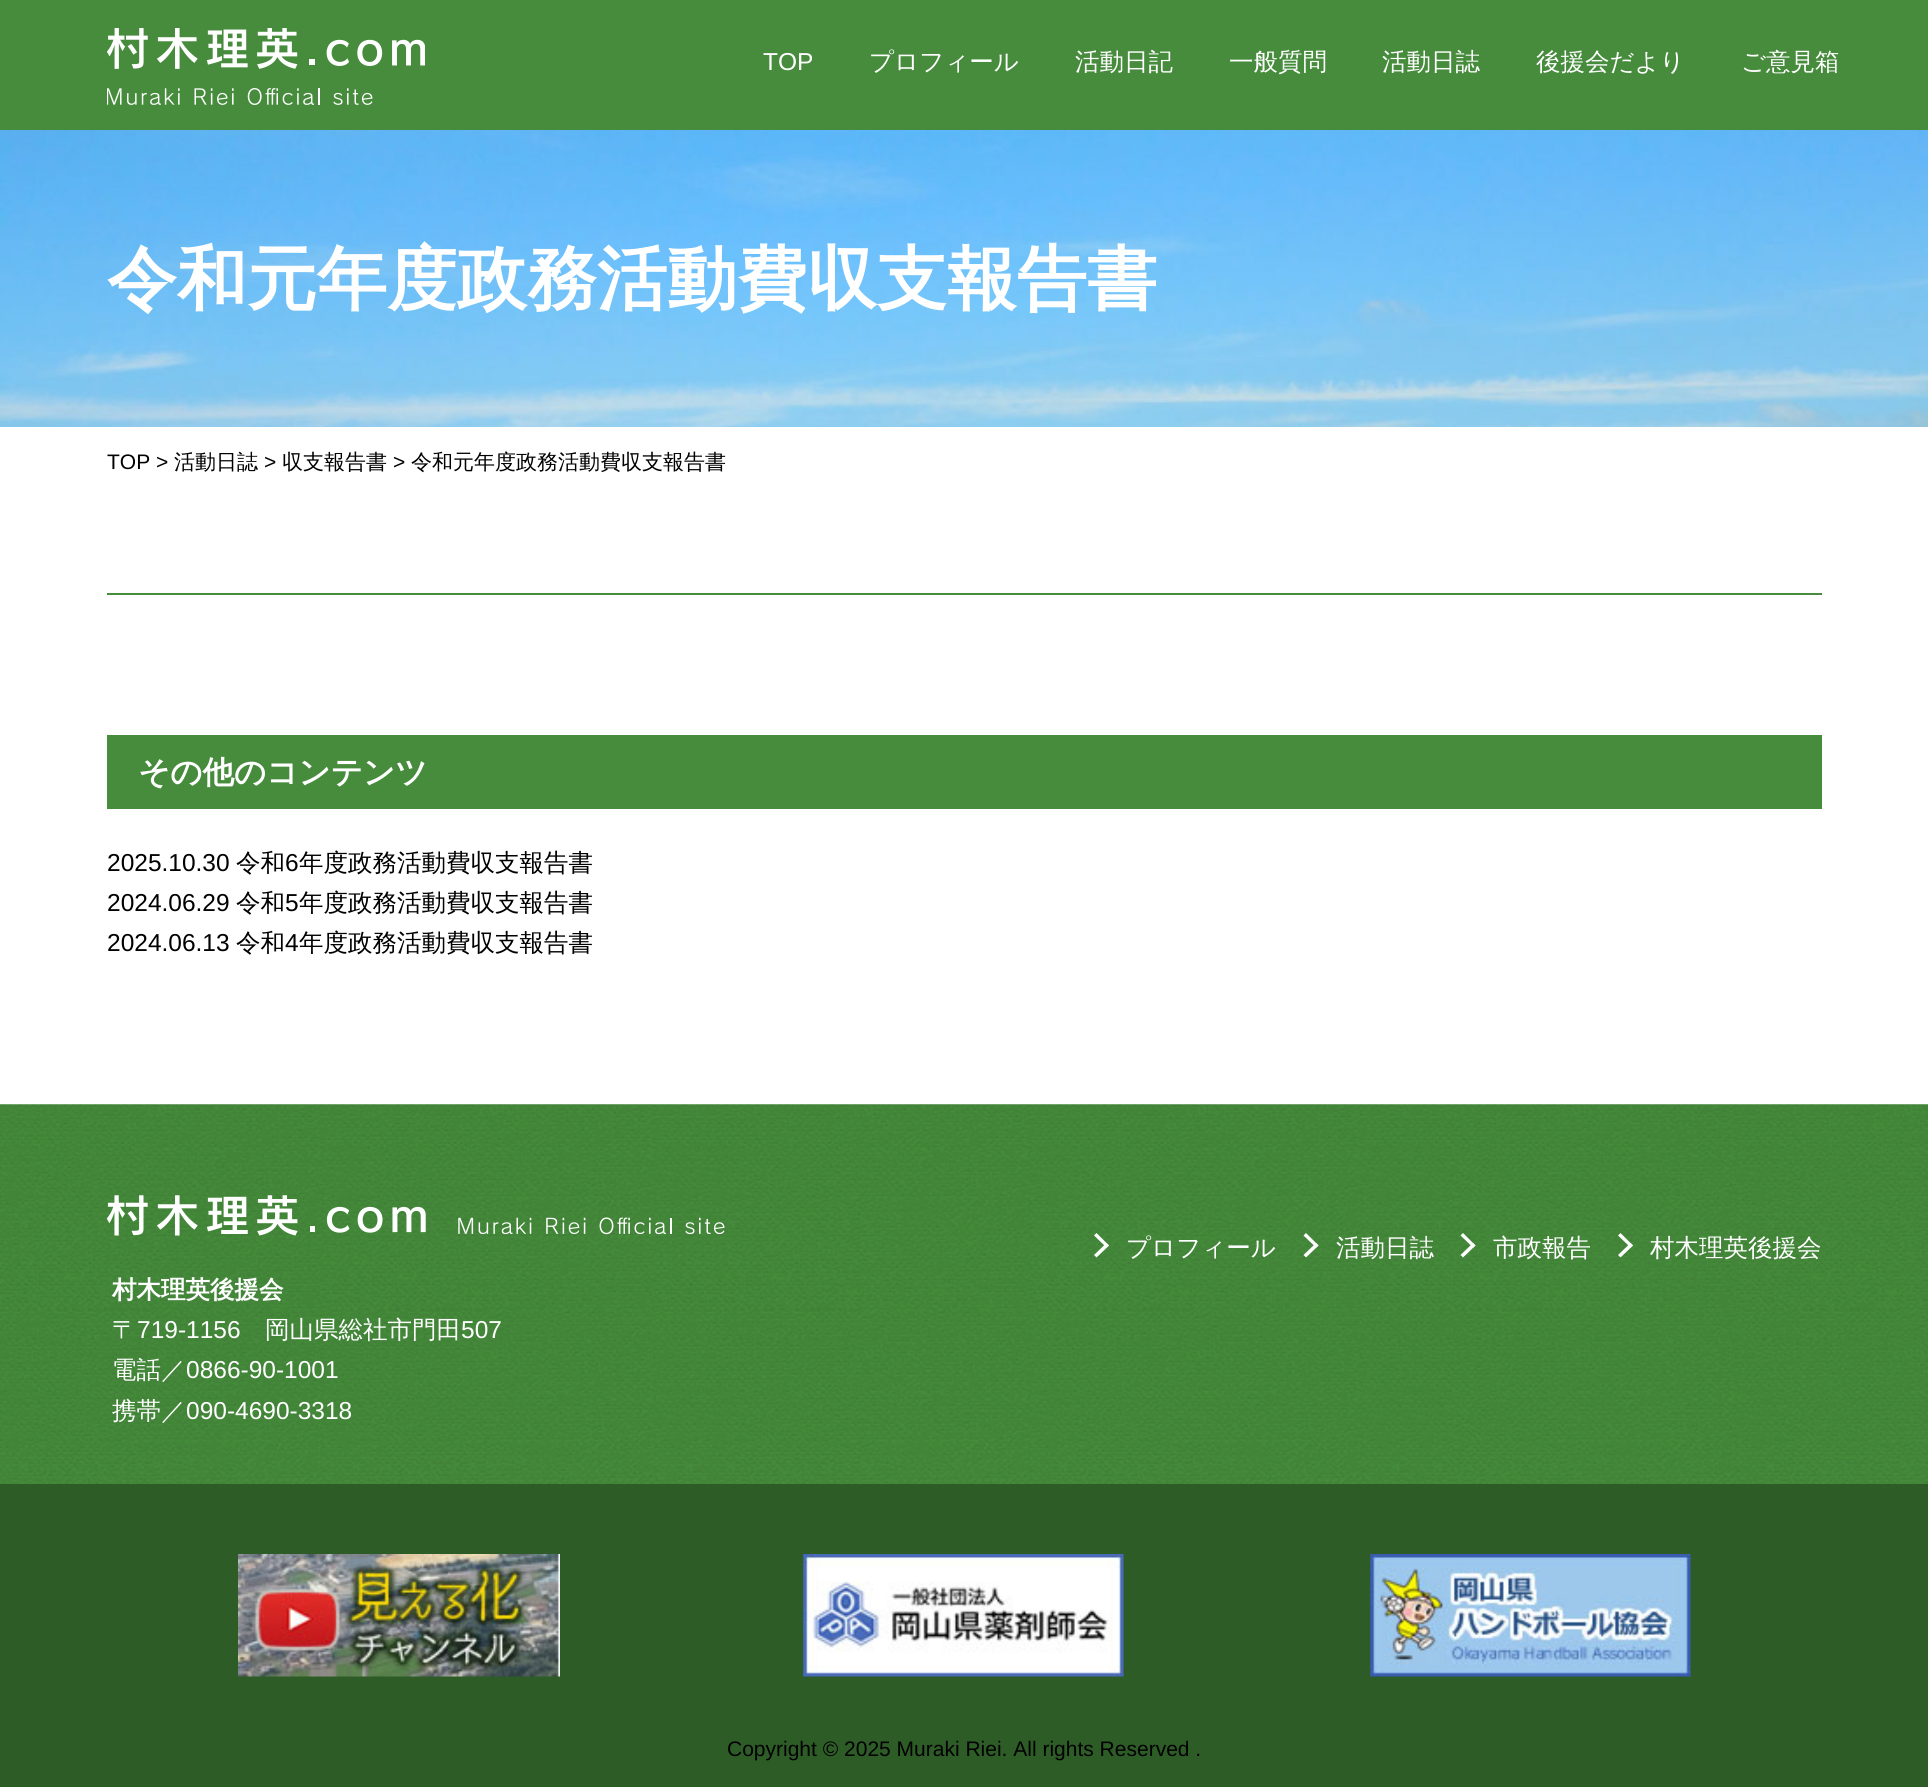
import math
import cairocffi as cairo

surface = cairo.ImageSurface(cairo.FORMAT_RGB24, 1928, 1787)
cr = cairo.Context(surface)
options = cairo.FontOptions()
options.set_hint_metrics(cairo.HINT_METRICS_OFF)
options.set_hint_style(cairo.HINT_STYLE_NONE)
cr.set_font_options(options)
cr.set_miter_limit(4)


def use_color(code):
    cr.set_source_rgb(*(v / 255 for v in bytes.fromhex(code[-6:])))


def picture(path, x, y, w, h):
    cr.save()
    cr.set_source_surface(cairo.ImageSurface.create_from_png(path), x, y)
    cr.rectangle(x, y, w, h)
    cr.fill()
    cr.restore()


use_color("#ffffff")
cr.paint()
use_color("#468c3c")
cr.rectangle(0, 0, 1928, 130)
cr.fill()
picture("img1.png", 107, 28, 318, 77)
cr.select_font_face("Liberation Sans")
cr.set_font_size(24.5)
use_color("#ffffff")
cr.move_to(763, 70)
cr.show_text("TOP")
cr.select_font_face("WenQuanYi Zen Hei Medium")
cr.move_to(869, 70)
cr.show_text("プロフィール")
cr.move_to(1075, 70)
cr.show_text("活動日記")
cr.move_to(1229, 70)
cr.show_text("一般質問")
cr.move_to(1382, 70)
cr.show_text("活動日誌")
cr.move_to(1536, 70)
cr.show_text("後援会だより")
cr.move_to(1741, 70)
cr.show_text("ご意見箱")
picture("img2.png", 0, 130, 1928, 297)
cr.select_font_face("WenQuanYi Zen Hei", cairo.FONT_SLANT_NORMAL, cairo.FONT_WEIGHT_BOLD)
cr.set_font_size(70)
cr.move_to(107, 303)
cr.show_text("令和元年度政務活動費収支報告書")
cr.select_font_face("Liberation Sans")
cr.set_font_size(21)
use_color("#000000")
cr.move_to(107, 469)
cr.show_text("TOP >")
cr.select_font_face("WenQuanYi Zen Hei Medium")
cr.move_to(174, 469)
cr.show_text("活動日誌")
cr.select_font_face("Liberation Sans")
cr.move_to(264, 469)
cr.show_text(">")
cr.select_font_face("WenQuanYi Zen Hei Medium")
cr.move_to(282, 469)
cr.show_text("収支報告書")
cr.select_font_face("Liberation Sans")
cr.move_to(393, 469)
cr.show_text(">")
cr.select_font_face("WenQuanYi Zen Hei Medium")
cr.move_to(411, 469)
cr.show_text("令和元年度政務活動費収支報告書")
use_color("#468c3c")
cr.rectangle(107, 593, 1715, 2)
cr.fill()
cr.rectangle(107, 735, 1715, 74)
cr.fill()
cr.select_font_face("WenQuanYi Zen Hei", cairo.FONT_SLANT_NORMAL, cairo.FONT_WEIGHT_BOLD)
cr.set_font_size(31.5)
use_color("#ffffff")
cr.move_to(138, 783)
cr.show_text("その他のコンテンツ")
cr.select_font_face("Liberation Sans")
cr.set_font_size(24.5)
use_color("#000000")
cr.move_to(107, 871)
cr.show_text("2025.10.30")
cr.select_font_face("WenQuanYi Zen Hei Medium")
cr.move_to(236, 871)
cr.show_text("令和")
cr.select_font_face("Liberation Sans")
cr.move_to(285, 871)
cr.show_text("6")
cr.select_font_face("WenQuanYi Zen Hei Medium")
cr.move_to(299, 871)
cr.show_text("年度政務活動費収支報告書")
cr.select_font_face("Liberation Sans")
cr.move_to(107, 911)
cr.show_text("2024.06.29")
cr.select_font_face("WenQuanYi Zen Hei Medium")
cr.move_to(236, 911)
cr.show_text("令和")
cr.select_font_face("Liberation Sans")
cr.move_to(285, 911)
cr.show_text("5")
cr.select_font_face("WenQuanYi Zen Hei Medium")
cr.move_to(299, 911)
cr.show_text("年度政務活動費収支報告書")
cr.select_font_face("Liberation Sans")
cr.move_to(107, 951)
cr.show_text("2024.06.13")
cr.select_font_face("WenQuanYi Zen Hei Medium")
cr.move_to(236, 951)
cr.show_text("令和")
cr.select_font_face("Liberation Sans")
cr.move_to(285, 951)
cr.show_text("4")
cr.select_font_face("WenQuanYi Zen Hei Medium")
cr.move_to(299, 951)
cr.show_text("年度政務活動費収支報告書")
picture("img3.png", 0, 1104, 1928, 380)
use_color("#ffffff")
cr.new_path()
cr.move_to(1096.5, 1233)
cr.line_to(1109, 1245.5)
cr.line_to(1106.5, 1247.5)
cr.line_to(1094, 1235.5)
cr.close_path()
cr.fill()
cr.new_path()
cr.move_to(1106.5, 1243)
cr.line_to(1109, 1245.5)
cr.line_to(1096.5, 1257.5)
cr.line_to(1094, 1255)
cr.close_path()
cr.fill()
cr.move_to(1126, 1256)
cr.show_text("プロフィール")
cr.new_path()
cr.move_to(1306, 1233)
cr.line_to(1318.5, 1245.5)
cr.line_to(1316, 1247.5)
cr.line_to(1303.5, 1235.5)
cr.close_path()
cr.fill()
cr.new_path()
cr.move_to(1316, 1243)
cr.line_to(1318.5, 1245.5)
cr.line_to(1306, 1257.5)
cr.line_to(1303.5, 1255)
cr.close_path()
cr.fill()
cr.move_to(1336, 1256)
cr.show_text("活動日誌")
cr.new_path()
cr.move_to(1463, 1233)
cr.line_to(1475.5, 1245.5)
cr.line_to(1473, 1247.5)
cr.line_to(1460.5, 1235.5)
cr.close_path()
cr.fill()
cr.new_path()
cr.move_to(1473, 1243)
cr.line_to(1475.5, 1245.5)
cr.line_to(1463, 1257.5)
cr.line_to(1460.5, 1255)
cr.close_path()
cr.fill()
cr.move_to(1493, 1256)
cr.show_text("市政報告")
cr.new_path()
cr.move_to(1620.5, 1233)
cr.line_to(1633, 1245.5)
cr.line_to(1630.5, 1247.5)
cr.line_to(1618, 1235.5)
cr.close_path()
cr.fill()
cr.new_path()
cr.move_to(1630.5, 1243)
cr.line_to(1633, 1245.5)
cr.line_to(1620.5, 1257.5)
cr.line_to(1618, 1255)
cr.close_path()
cr.fill()
cr.move_to(1650, 1256)
cr.show_text("村木理英後援会")
picture("img4.png", 107, 1195, 618, 41)
cr.select_font_face("WenQuanYi Zen Hei", cairo.FONT_SLANT_NORMAL, cairo.FONT_WEIGHT_BOLD)
cr.move_to(112, 1298)
cr.show_text("村木理英後援会")
cr.select_font_face("WenQuanYi Zen Hei Medium")
cr.move_to(112, 1338)
cr.show_text("〒")
cr.select_font_face("Liberation Sans")
cr.move_to(137, 1338)
cr.show_text("719-1156")
cr.select_font_face("WenQuanYi Zen Hei Medium")
cr.move_to(265, 1338)
cr.show_text("岡山県総社市門田")
cr.select_font_face("Liberation Sans")
cr.move_to(461, 1338)
cr.show_text("507")
cr.select_font_face("WenQuanYi Zen Hei Medium")
cr.move_to(112, 1378)
cr.show_text("電話／")
cr.select_font_face("Liberation Sans")
cr.move_to(186, 1378)
cr.show_text("0866-90-1001")
cr.select_font_face("WenQuanYi Zen Hei Medium")
cr.move_to(112, 1419)
cr.show_text("携帯／")
cr.select_font_face("Liberation Sans")
cr.move_to(186, 1419)
cr.show_text("090-4690-3318")
use_color("#2e5c27")
cr.rectangle(0, 1484, 1928, 303)
cr.fill()
picture("img5.png", 238, 1554, 322, 123)
picture("img6.png", 803, 1554, 321, 123)
picture("img7.png", 1370, 1554, 321, 123)
cr.set_font_size(21)
use_color("#000000")
cr.move_to(727, 1756)
cr.show_text("Copyright © 2025 Muraki Riei. All rights Reserved .")
surface.write_to_png("result.png")
